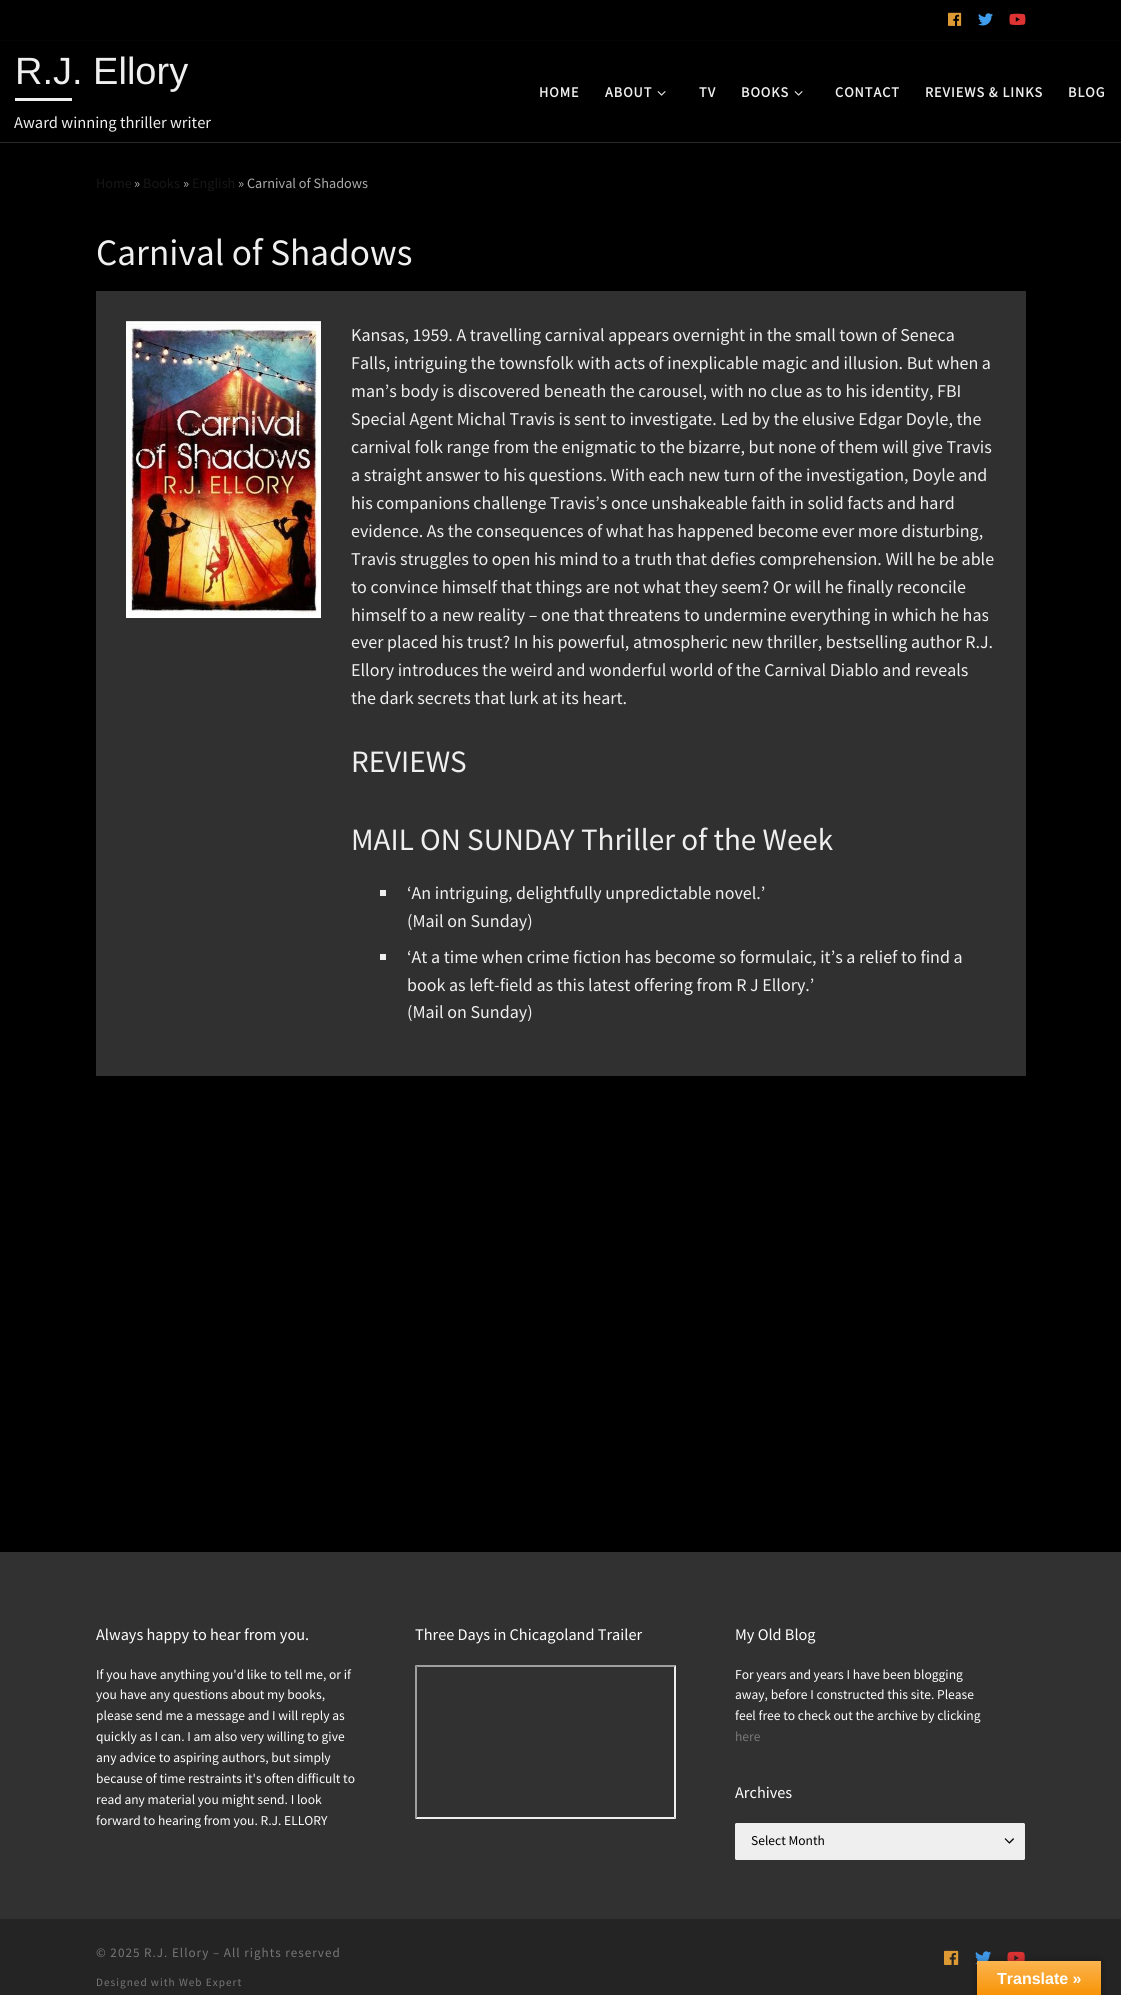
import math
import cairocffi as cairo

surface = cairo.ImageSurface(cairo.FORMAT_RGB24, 1121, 1995)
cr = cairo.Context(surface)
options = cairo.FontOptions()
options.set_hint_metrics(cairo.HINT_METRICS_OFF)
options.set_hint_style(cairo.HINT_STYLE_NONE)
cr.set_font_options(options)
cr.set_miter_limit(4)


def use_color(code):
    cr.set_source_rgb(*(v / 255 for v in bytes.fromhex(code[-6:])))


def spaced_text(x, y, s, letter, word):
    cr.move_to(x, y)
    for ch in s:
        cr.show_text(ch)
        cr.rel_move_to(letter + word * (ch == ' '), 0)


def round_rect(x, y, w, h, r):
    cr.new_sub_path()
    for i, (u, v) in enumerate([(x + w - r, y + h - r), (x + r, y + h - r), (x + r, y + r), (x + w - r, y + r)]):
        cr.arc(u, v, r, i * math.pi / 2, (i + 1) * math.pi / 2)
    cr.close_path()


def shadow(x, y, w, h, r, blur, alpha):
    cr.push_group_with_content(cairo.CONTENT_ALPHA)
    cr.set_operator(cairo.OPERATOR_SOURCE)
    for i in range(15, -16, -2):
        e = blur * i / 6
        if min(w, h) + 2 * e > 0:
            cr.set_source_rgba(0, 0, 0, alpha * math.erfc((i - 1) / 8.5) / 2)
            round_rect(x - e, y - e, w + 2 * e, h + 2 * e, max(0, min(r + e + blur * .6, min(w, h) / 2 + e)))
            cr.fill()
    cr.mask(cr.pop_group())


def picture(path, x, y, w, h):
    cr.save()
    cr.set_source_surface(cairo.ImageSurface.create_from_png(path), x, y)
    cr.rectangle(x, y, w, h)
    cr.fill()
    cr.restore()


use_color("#000000")
cr.paint()
use_color("#040404")
cr.rectangle(0, 40, 1121, 1)
cr.fill()
picture("img1.png", 948, 12, 14, 14)
picture("img2.png", 978, 13, 15, 13)
picture("img3.png", 1009, 13, 17, 12)
use_color("#2a2a2a")
cr.rectangle(0, 142, 1121, 1)
cr.fill()
cr.select_font_face("Liberation Sans")
cr.set_font_size(38)
use_color("#efefef")
cr.move_to(15, 84)
cr.show_text("R.J. Ellory")
cr.rectangle(15, 98, 57, 3)
cr.fill()
cr.select_font_face("Source Sans Pro")
cr.set_font_size(16.5)
cr.move_to(14, 128)
cr.show_text("Award winning thriller writer")
cr.select_font_face("Source Sans Pro", cairo.FONT_SLANT_NORMAL, cairo.FONT_WEIGHT_BOLD)
cr.set_font_size(14.25)
spaced_text(539, 97, "HOME", 1, 0)
spaced_text(605, 97, "ABOUT", 1, 0)
picture("img4.png", 657, 91, 9, 5)
spaced_text(699, 97, "TV", 1, 0)
spaced_text(741, 97, "BOOKS", 1, 0)
picture("img4.png", 794, 91, 9, 5)
spaced_text(835, 97, "CONTACT", 1, 0)
spaced_text(925, 97, "REVIEWS & LINKS", 1, 0)
spaced_text(1068, 97, "BLOG", 1, 0)
cr.select_font_face("Source Sans Pro")
use_color("#161616")
cr.move_to(96, 188)
cr.show_text("Home")
use_color("#ababab")
cr.move_to(134, 188)
cr.show_text("»")
use_color("#161616")
cr.move_to(143, 188)
cr.show_text("Books")
use_color("#ababab")
cr.move_to(183, 188)
cr.show_text("»")
use_color("#161616")
cr.move_to(192, 188)
cr.show_text("English")
use_color("#ababab")
cr.move_to(238, 188)
cr.show_text("» Carnival of Shadows")
cr.set_font_size(37.25)
use_color("#efefef")
cr.move_to(96, 265)
cr.show_text("Carnival of Shadows")
use_color("#303030")
cr.rectangle(96, 291, 930, 785)
cr.fill()
use_color("#e3e3e3")
cr.rectangle(126, 321, 195, 1)
cr.fill()
picture("img5.png", 126, 322, 195, 296)
cr.set_font_size(18)
use_color("#efefef")
cr.move_to(351, 341)
cr.show_text("Kansas, 1959. A travelling carnival appears overnight in the small town of Seneca")
cr.move_to(351, 369)
cr.show_text("Falls, intriguing the townsfolk with acts of inexplicable magic and illusion. But when a")
cr.move_to(351, 397)
cr.show_text("man’s body is discovered beneath the carousel, with no clue as to his identity, FBI")
cr.move_to(351, 425)
cr.show_text("Special Agent Michal Travis is sent to investigate. Led by the elusive Edgar Doyle, the")
cr.move_to(351, 453)
cr.show_text("carnival folk range from the enigmatic to the bizarre, but none of them will give Travis")
cr.move_to(351, 481)
cr.show_text("a straight answer to his questions. With each new turn of the investigation, Doyle and")
cr.move_to(351, 509)
cr.show_text("his companions challenge Travis’s once unshakeable faith in solid facts and hard")
cr.move_to(351, 537)
cr.show_text("evidence. As the consequences of what has happened become ever more disturbing,")
cr.move_to(351, 565)
cr.show_text("Travis struggles to open his mind to a truth that defies comprehension. Will he be able")
cr.move_to(351, 593)
cr.show_text("to convince himself that things are not what they seem? Or will he finally reconcile")
cr.move_to(351, 621)
cr.show_text("himself to a new reality – one that threatens to undermine everything in which he has")
cr.move_to(351, 648)
cr.show_text("ever placed his trust? In his powerful, atmospheric new thriller, bestselling author R.J.")
cr.move_to(351, 676)
cr.show_text("Ellory introduces the weird and wonderful world of the Carnival Diablo and reveals")
cr.move_to(351, 704)
cr.show_text("the dark secrets that lurk at its heart.")
cr.set_font_size(31.1)
cr.move_to(351, 772)
cr.show_text("REVIEWS")
cr.move_to(351, 850)
cr.show_text("MAIL ON SUNDAY Thriller of the Week")
cr.rectangle(380, 890, 6, 6)
cr.fill()
cr.set_font_size(18)
cr.move_to(407, 899)
cr.show_text("‘An intriguing, delightfully unpredictable novel.’")
cr.move_to(407, 927)
cr.show_text("(Mail on Sunday)")
cr.rectangle(380, 954, 6, 6)
cr.fill()
cr.move_to(407, 963)
cr.show_text("‘At a time when crime fiction has become so formulaic, it’s a relief to find a")
cr.move_to(407, 991)
cr.show_text("book as left-field as this latest offering from R J Ellory.’")
cr.move_to(407, 1018)
cr.show_text("(Mail on Sunday)")
use_color("#313131")
cr.rectangle(0, 1552, 1121, 367)
cr.fill()
cr.set_font_size(16.25)
use_color("#ffffff")
cr.move_to(96, 1640)
cr.show_text("Always happy to hear from you.")
cr.set_font_size(13.5)
cr.move_to(96, 1679)
cr.show_text("If you have anything you'd like to tell me, or if")
cr.move_to(96, 1699)
cr.show_text("you have any questions about my books,")
cr.move_to(96, 1720)
cr.show_text("please send me a message and I will reply as")
cr.move_to(96, 1741)
cr.show_text("quickly as I can. I am also very willing to give")
cr.move_to(96, 1762)
cr.show_text("any advice to aspiring authors, but simply")
cr.move_to(96, 1783)
cr.show_text("because of time restraints it's often difficult to")
cr.move_to(96, 1804)
cr.show_text("read any material you might send. I look")
cr.move_to(96, 1825)
cr.show_text("forward to hearing from you. R.J. ELLORY")
cr.set_font_size(16.25)
cr.move_to(415, 1640)
cr.show_text("Three Days in Chicagoland Trailer")
use_color("#9f9f9f")
cr.new_path()
cr.move_to(415, 1665)
cr.line_to(676, 1665)
cr.line_to(674, 1667)
cr.line_to(417, 1667)
cr.close_path()
cr.fill()
use_color("#eeeeee")
cr.new_path()
cr.move_to(676, 1665)
cr.line_to(676, 1819)
cr.line_to(674, 1817)
cr.line_to(674, 1667)
cr.close_path()
cr.fill()
cr.new_path()
cr.move_to(676, 1819)
cr.line_to(415, 1819)
cr.line_to(417, 1817)
cr.line_to(674, 1817)
cr.close_path()
cr.fill()
use_color("#9f9f9f")
cr.new_path()
cr.move_to(415, 1819)
cr.line_to(415, 1665)
cr.line_to(417, 1667)
cr.line_to(417, 1817)
cr.close_path()
cr.fill()
use_color("#ffffff")
cr.move_to(735, 1640)
cr.show_text("My Old Blog")
cr.set_font_size(13.5)
cr.move_to(735, 1679)
cr.show_text("For years and years I have been blogging")
cr.move_to(735, 1699)
cr.show_text("away, before I constructed this site. Please")
cr.move_to(735, 1720)
cr.show_text("feel free to check out the archive by clicking")
use_color("#777777")
cr.move_to(735, 1741)
cr.show_text("here")
cr.set_font_size(16.25)
use_color("#ffffff")
cr.move_to(735, 1798)
cr.show_text("Archives")
use_color("#efefef")
round_rect(735, 1823, 290, 37, 2)
cr.fill()
picture("img6.png", 1004, 1838, 10, 6)
round_rect(735.5, 1823.5, 289, 36, 1.5)
use_color("#eceeef")
cr.set_line_width(1)
cr.stroke()
cr.set_font_size(13.5)
use_color("#000000")
cr.move_to(751, 1845)
cr.show_text("Select Month")
use_color("#242424")
cr.rectangle(0, 1919, 1121, 76)
cr.fill()
cr.set_font_size(13.1)
use_color("#777777")
spaced_text(96, 1957, "© 2025 R.J. Ellory – All rights reserved", 1, 0)
cr.set_font_size(11.25)
spaced_text(96, 1986, "Designed with Web Expert", 1, 0)
picture("img7.png", 944, 1950, 15, 15)
picture("img8.png", 975, 1951, 16, 13)
picture("img9.png", 1007, 1951, 18, 10)
use_color("#000000")
shadow(977, 1961, 124, 34, 0, 4.5, 0.3)
gradient = cairo.LinearGradient(1039, 1961, 1039, 1995)
gradient.add_color_stop_rgba(0, 0.984, 0.706, 0.314, 1)
gradient.add_color_stop_rgba(1, 0.973, 0.58, 0.024, 1)
cr.set_source(gradient)
cr.rectangle(977, 1961, 124, 34)
cr.fill()
cr.select_font_face("Liberation Sans", cairo.FONT_SLANT_NORMAL, cairo.FONT_WEIGHT_BOLD)
cr.set_font_size(16)
use_color("#ffffff")
cr.move_to(997, 1984)
cr.show_text("Translate »")
surface.write_to_png("result.png")
